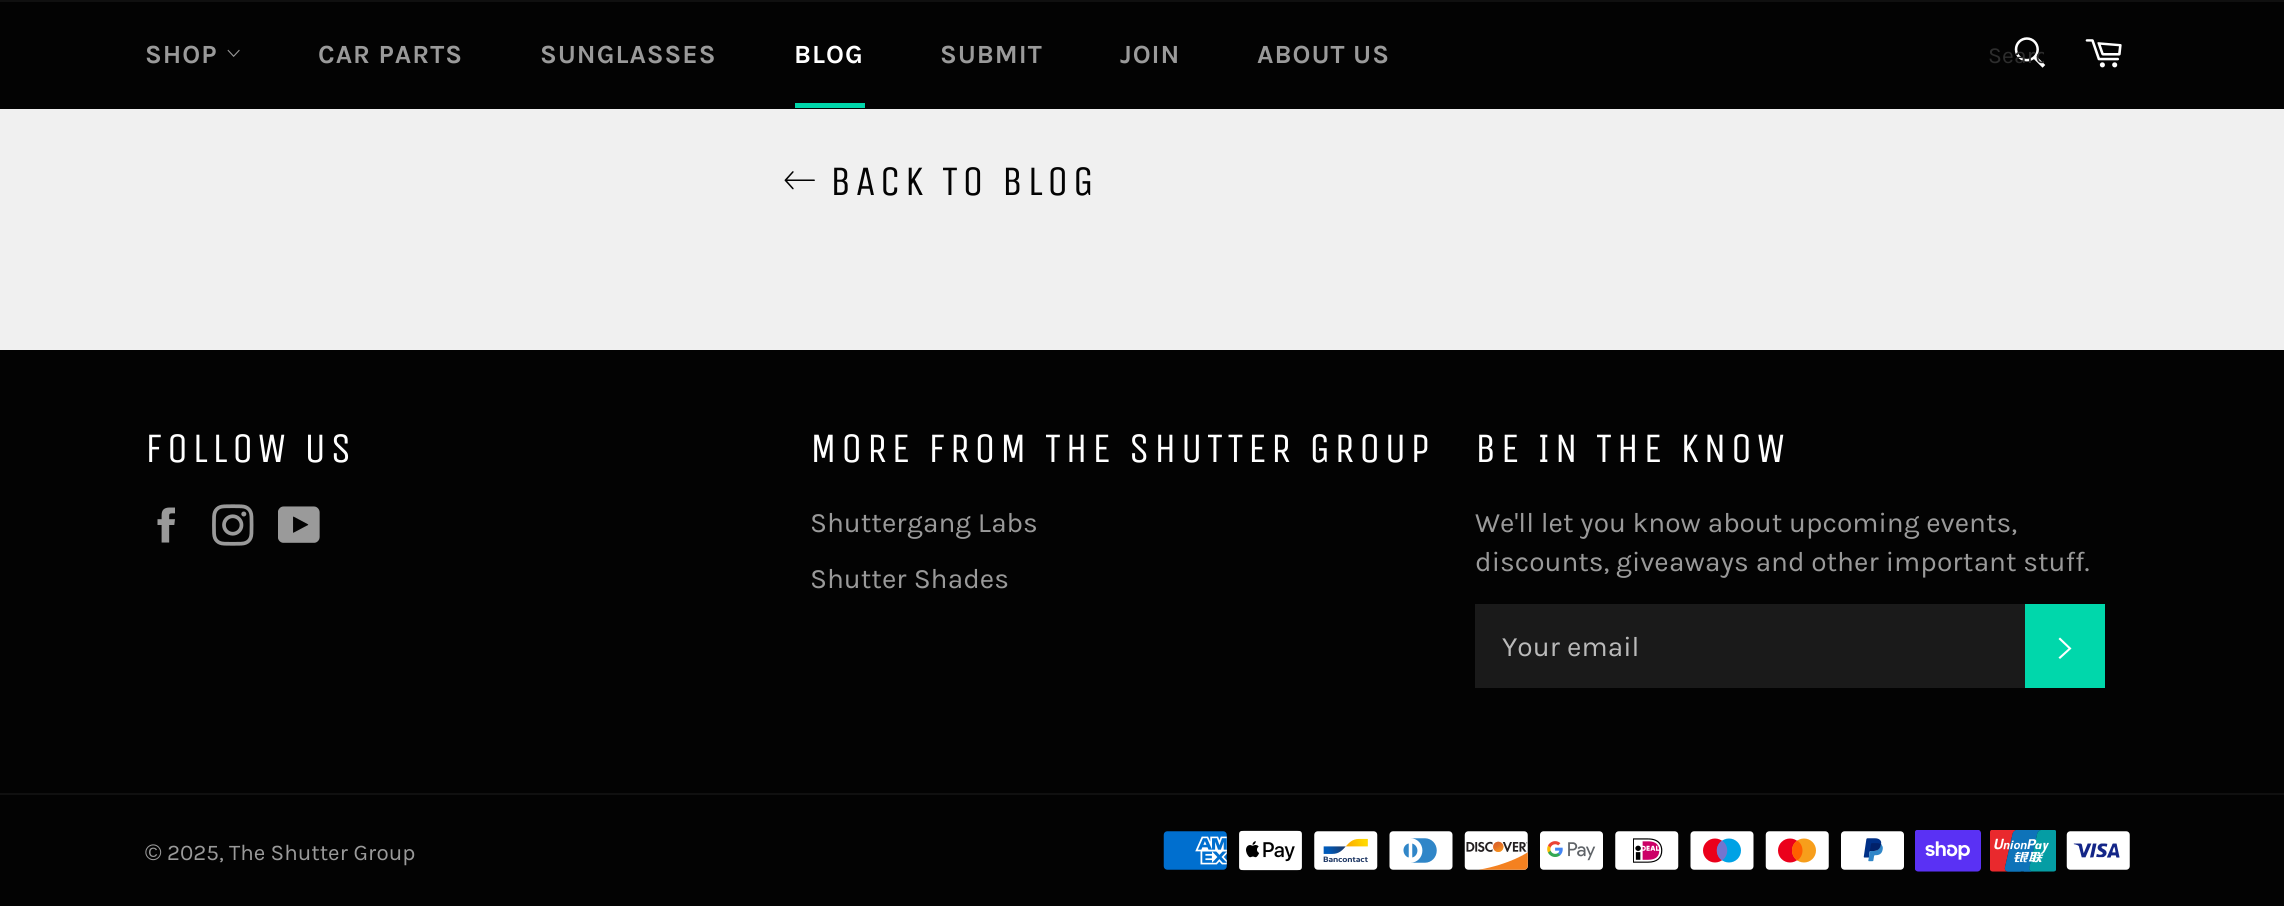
import math
import cairocffi as cairo

surface = cairo.ImageSurface(cairo.FORMAT_RGB24, 2284, 906)
cr = cairo.Context(surface)
options = cairo.FontOptions()
options.set_hint_metrics(cairo.HINT_METRICS_OFF)
options.set_hint_style(cairo.HINT_STYLE_NONE)
cr.set_font_options(options)
cr.set_miter_limit(4)


def use_color(code):
    cr.set_source_rgb(*(v / 255 for v in bytes.fromhex(code[-6:])))


def spaced_text(x, y, s, letter, word):
    cr.move_to(x, y)
    for ch in s:
        cr.show_text(ch)
        cr.rel_move_to(letter + word * (ch == ' '), 0)


def picture(path, x, y, w, h):
    cr.save()
    cr.set_source_surface(cairo.ImageSurface.create_from_png(path), x, y)
    cr.rectangle(x, y, w, h)
    cr.fill()
    cr.restore()


use_color("#f0f0f0")
cr.paint()
use_color("#030303")
cr.rectangle(0, 2, 2284, 107)
cr.fill()
use_color("#101010")
cr.rectangle(0, 0, 2284, 2)
cr.fill()
cr.select_font_face("Karla", cairo.FONT_SLANT_NORMAL, cairo.FONT_WEIGHT_BOLD)
cr.set_font_size(26.25)
use_color("#9a9a9a")
spaced_text(145, 63, "SHOP", 1, 0)
picture("img1.png", 227, 49, 13, 8)
spaced_text(318, 63, "CAR PARTS", 1, 0)
spaced_text(540, 63, "SUNGLASSES", 1, 0)
use_color("#ffffff")
spaced_text(794, 63, "BLOG", 1, 0)
use_color("#00d7ab")
cr.rectangle(795, 103, 70, 5)
cr.fill()
use_color("#9a9a9a")
spaced_text(940, 63, "SUBMIT", 1, 0)
spaced_text(1120, 63, "JOIN", 1, 0)
spaced_text(1257, 63, "ABOUT US", 1, 0)
picture("img2.png", 2014, 37, 32, 31)
cr.save()
cr.rectangle(1988, 42, 56, 26)
cr.clip()
cr.select_font_face("Karla")
cr.set_font_size(23)
use_color("#2d2d2d")
cr.move_to(1988, 63)
cr.show_text("Searc")
cr.restore()
picture("img3.png", 2085, 39, 37, 29)
picture("img4.png", 784, 171, 31, 19)
cr.select_font_face("Unica One")
cr.set_font_size(42)
use_color("#030303")
spaced_text(830, 195, "BACK TO BLOG", 4.2, 0)
cr.rectangle(0, 350, 2284, 556)
cr.fill()
use_color("#ffffff")
spaced_text(145, 462, "FOLLOW US", 4.2, 0)
picture("img5.png", 157, 507, 18, 36)
picture("img6.png", 212, 504, 42, 42)
picture("img7.png", 278, 506, 42, 37)
spaced_text(810, 462, "MORE FROM THE SHUTTER GROUP", 4.2, 0)
cr.select_font_face("Karla")
cr.set_font_size(28)
use_color("#9a9a9a")
cr.move_to(810, 532)
cr.show_text("Shuttergang Labs")
cr.move_to(810, 588)
cr.show_text("Shutter Shades")
cr.select_font_face("Unica One")
cr.set_font_size(42)
use_color("#ffffff")
spaced_text(1475, 462, "BE IN THE KNOW", 4.2, 0)
cr.select_font_face("Karla")
cr.set_font_size(28)
use_color("#9a9a9a")
cr.move_to(1475, 532)
cr.show_text("We'll let you know about upcoming events,")
cr.move_to(1475, 571)
cr.show_text("discounts, giveaways and other important stuff.")
use_color("#1a1a1a")
cr.rectangle(1475, 604, 550, 84)
cr.fill()
use_color("#bababa")
cr.move_to(1502, 656)
cr.show_text("Your email")
use_color("#00d7ab")
cr.rectangle(2025, 604, 80, 84)
cr.fill()
use_color("#ffffff")
cr.new_path()
cr.move_to(2058.5, 639)
cr.line_to(2060, 637.5)
cr.line_to(2071.5, 648.5)
cr.line_to(2060, 659)
cr.line_to(2058.5, 657.5)
cr.line_to(2068.5, 648.5)
cr.close_path()
cr.fill()
use_color("#101010")
cr.rectangle(0, 793, 2284, 2)
cr.fill()
cr.select_font_face("Liberation Sans")
cr.set_font_size(22.4)
use_color("#9a9a9a")
cr.move_to(145, 860)
cr.show_text("©")
cr.select_font_face("Karla")
cr.move_to(167, 860)
cr.show_text("2025, The Shutter Group")
picture("img8.png", 1163, 831, 64, 39)
picture("img9.png", 1239, 830, 63, 41)
picture("img10.png", 1314, 831, 64, 39)
picture("img11.png", 1389, 831, 64, 39)
picture("img12.png", 1464, 831, 64, 39)
picture("img13.png", 1540, 831, 63, 39)
picture("img14.png", 1615, 831, 64, 39)
picture("img15.png", 1690, 831, 64, 39)
picture("img16.png", 1765, 831, 64, 39)
picture("img17.png", 1841, 831, 63, 39)
picture("img18.png", 1915, 830, 66, 42)
picture("img19.png", 1990, 830, 66, 42)
picture("img20.png", 2066, 831, 64, 39)
surface.write_to_png("result.png")
